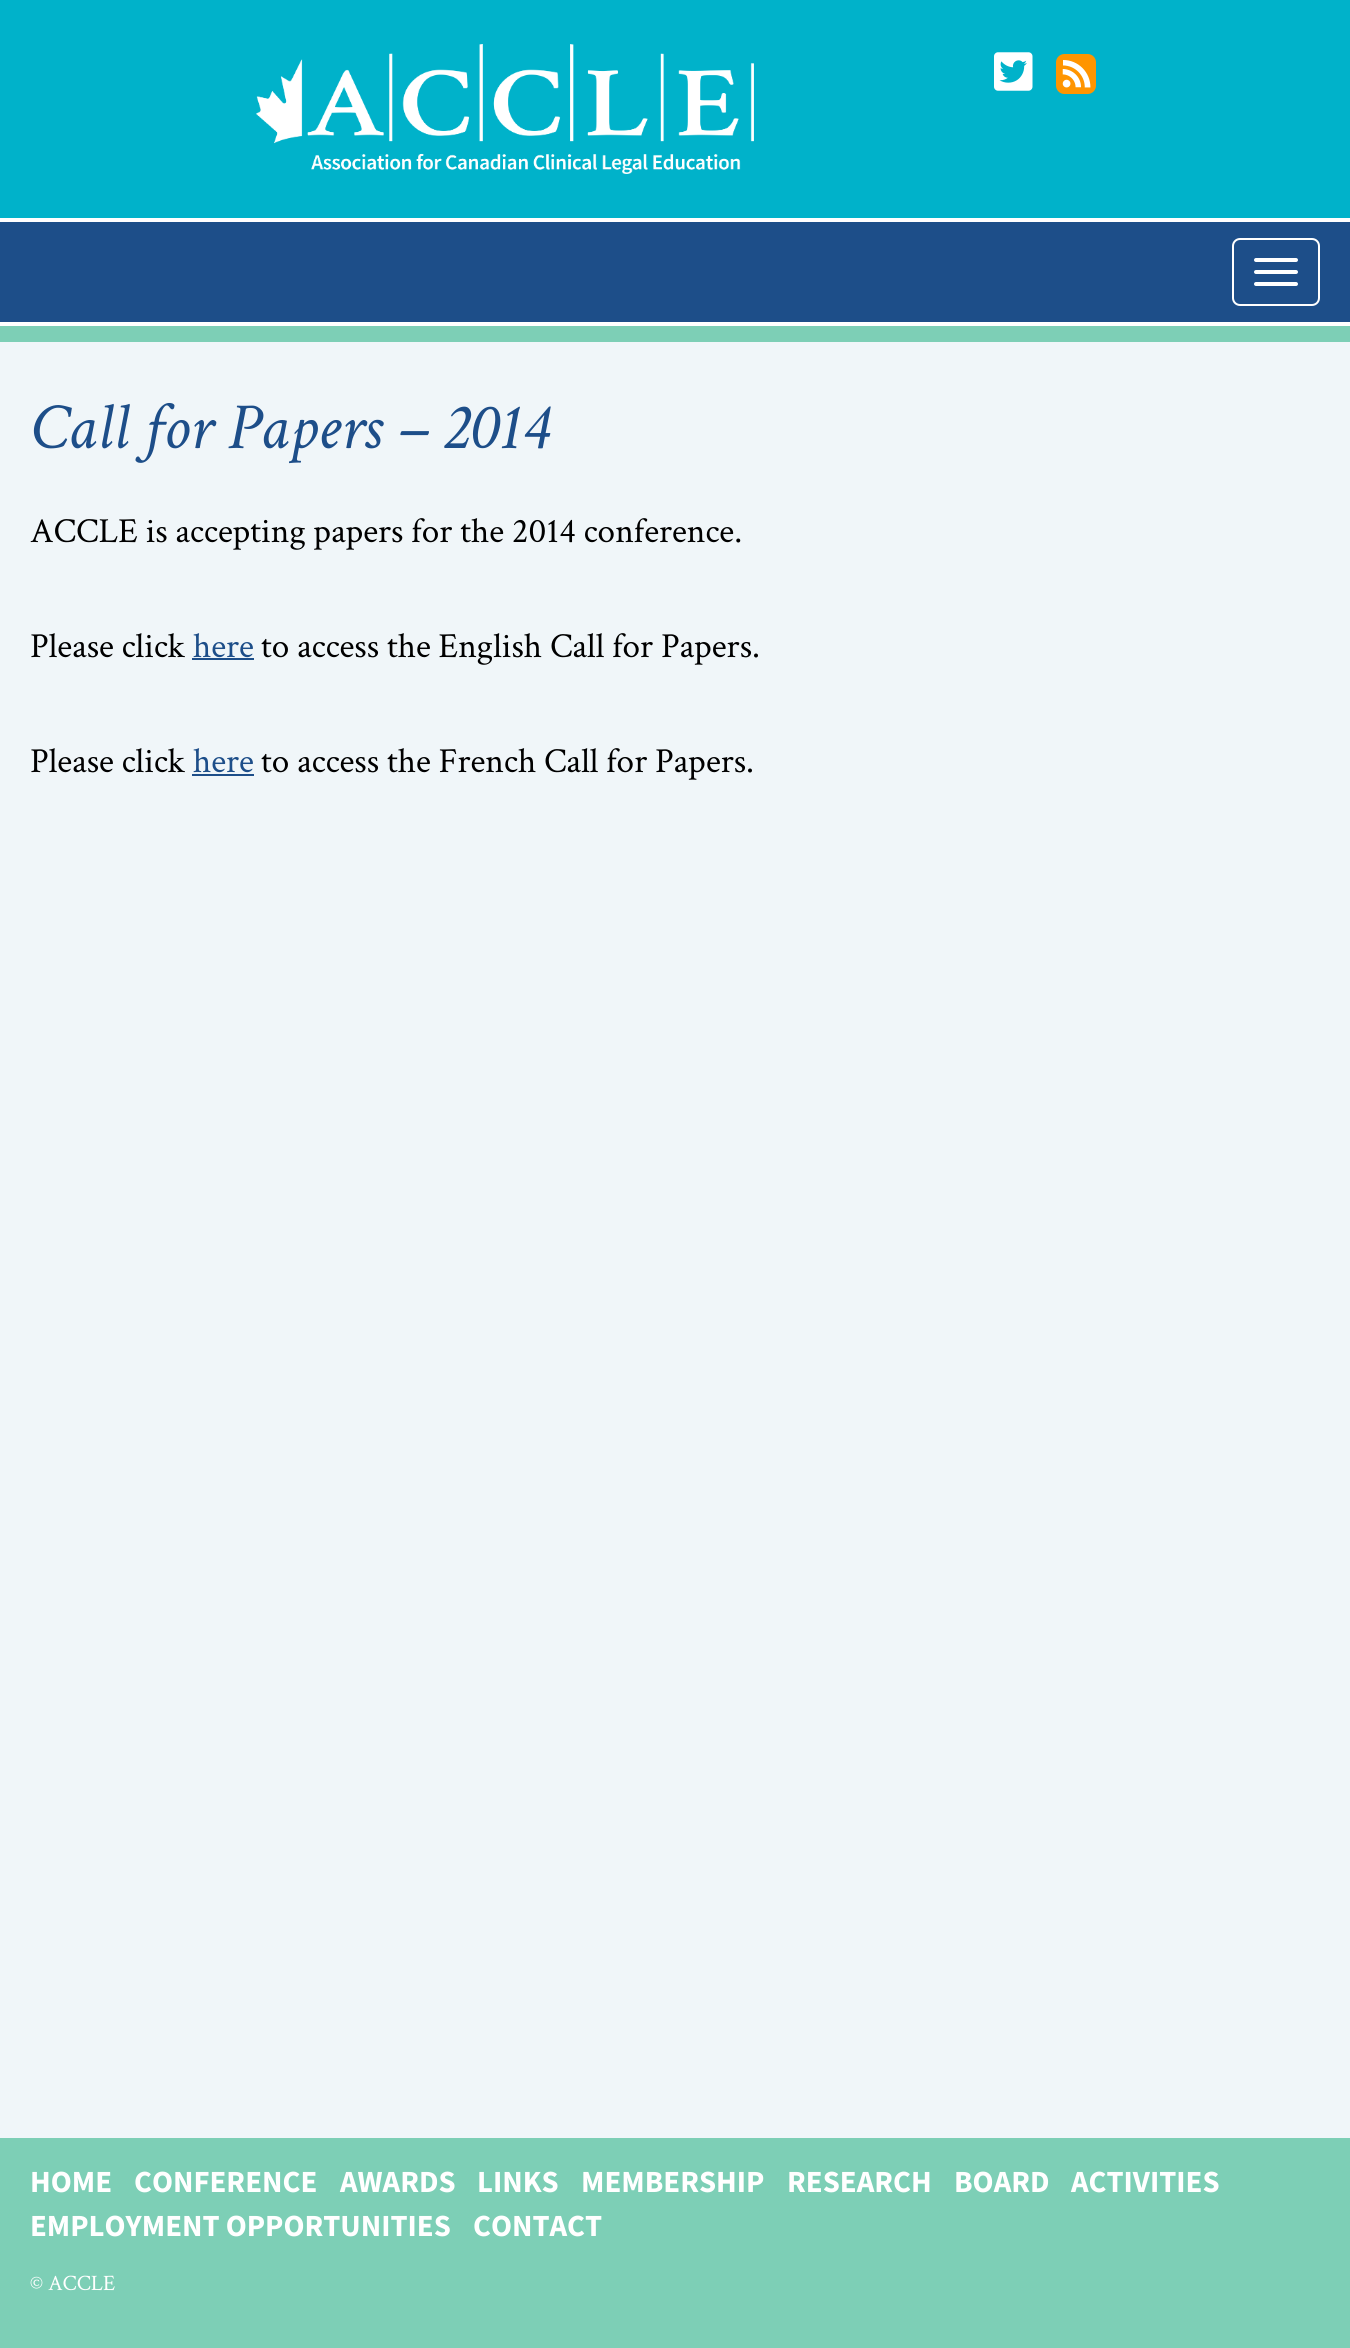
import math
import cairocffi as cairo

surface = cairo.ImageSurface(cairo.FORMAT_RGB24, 1350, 2348)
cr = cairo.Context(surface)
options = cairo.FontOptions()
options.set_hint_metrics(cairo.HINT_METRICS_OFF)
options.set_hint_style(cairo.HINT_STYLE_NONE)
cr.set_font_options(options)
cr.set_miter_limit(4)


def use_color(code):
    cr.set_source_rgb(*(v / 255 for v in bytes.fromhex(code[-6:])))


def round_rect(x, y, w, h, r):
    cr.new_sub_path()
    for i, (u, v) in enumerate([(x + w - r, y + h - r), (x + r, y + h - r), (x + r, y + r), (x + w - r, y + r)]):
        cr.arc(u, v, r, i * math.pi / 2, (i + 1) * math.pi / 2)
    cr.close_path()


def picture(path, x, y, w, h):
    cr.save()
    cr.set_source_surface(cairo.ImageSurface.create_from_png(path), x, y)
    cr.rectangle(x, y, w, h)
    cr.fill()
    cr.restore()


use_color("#f0f6f9")
cr.paint()
use_color("#1d4e89")
cr.rectangle(0, 222, 1350, 100)
cr.fill()
use_color("#ffffff")
cr.rectangle(0, 322, 1350, 4)
cr.fill()
use_color("#00b2ca")
cr.rectangle(0, 0, 1350, 218)
cr.fill()
use_color("#ffffff")
cr.rectangle(0, 218, 1350, 4)
cr.fill()
picture("img1.png", 256, 44, 498, 130)
picture("img2.png", 994, 52, 39, 39)
picture("img3.png", 1056, 54, 40, 40)
round_rect(1233, 239, 86, 66, 7)
cr.stroke()
round_rect(1254, 258, 44, 4, 2)
cr.fill()
round_rect(1254, 270, 44, 4, 2)
cr.fill()
round_rect(1254, 282, 44, 4, 2)
cr.fill()
use_color("#7dcfb6")
cr.rectangle(0, 326, 1350, 16)
cr.fill()
cr.select_font_face("Crimson Text", cairo.FONT_SLANT_ITALIC)
cr.set_font_size(66)
use_color("#1d4e89")
cr.move_to(30, 448)
cr.show_text("Call for Papers – 2014")
cr.select_font_face("Crimson Text")
cr.set_font_size(35.2)
use_color("#000000")
cr.move_to(30, 542)
cr.show_text("ACCLE is accepting papers for the 2014 conference.")
cr.move_to(30, 657)
cr.show_text("Please click")
use_color("#1d4e89")
cr.move_to(193, 657)
cr.show_text("here")
cr.rectangle(192, 658, 62, 2)
cr.fill()
use_color("#000000")
cr.move_to(261, 657)
cr.show_text("to access the English Call for Papers.")
cr.move_to(30, 772)
cr.show_text("Please click")
use_color("#1d4e89")
cr.move_to(193, 772)
cr.show_text("here")
cr.rectangle(192, 774, 62, 2)
cr.fill()
use_color("#000000")
cr.move_to(261, 772)
cr.show_text("to access the French Call for Papers.")
use_color("#7dcfb6")
cr.rectangle(0, 2138, 1350, 210)
cr.fill()
cr.select_font_face("Source Sans Pro", cairo.FONT_SLANT_NORMAL, cairo.FONT_WEIGHT_BOLD)
cr.set_font_size(30.75)
use_color("#ffffff")
cr.move_to(30, 2192)
cr.show_text("HOME")
cr.move_to(134, 2192)
cr.show_text("CONFERENCE")
cr.move_to(340, 2192)
cr.show_text("AWARDS")
cr.move_to(477, 2192)
cr.show_text("LINKS")
cr.move_to(581, 2192)
cr.show_text("MEMBERSHIP")
cr.move_to(787, 2192)
cr.show_text("RESEARCH")
cr.move_to(954, 2192)
cr.show_text("BOARD")
cr.move_to(1071, 2192)
cr.show_text("ACTIVITIES")
cr.move_to(30, 2236)
cr.show_text("EMPLOYMENT OPPORTUNITIES")
cr.move_to(473, 2236)
cr.show_text("CONTACT")
cr.select_font_face("Crimson Text")
cr.set_font_size(22)
cr.move_to(30, 2290)
cr.show_text("© ACCLE")
surface.write_to_png("result.png")
